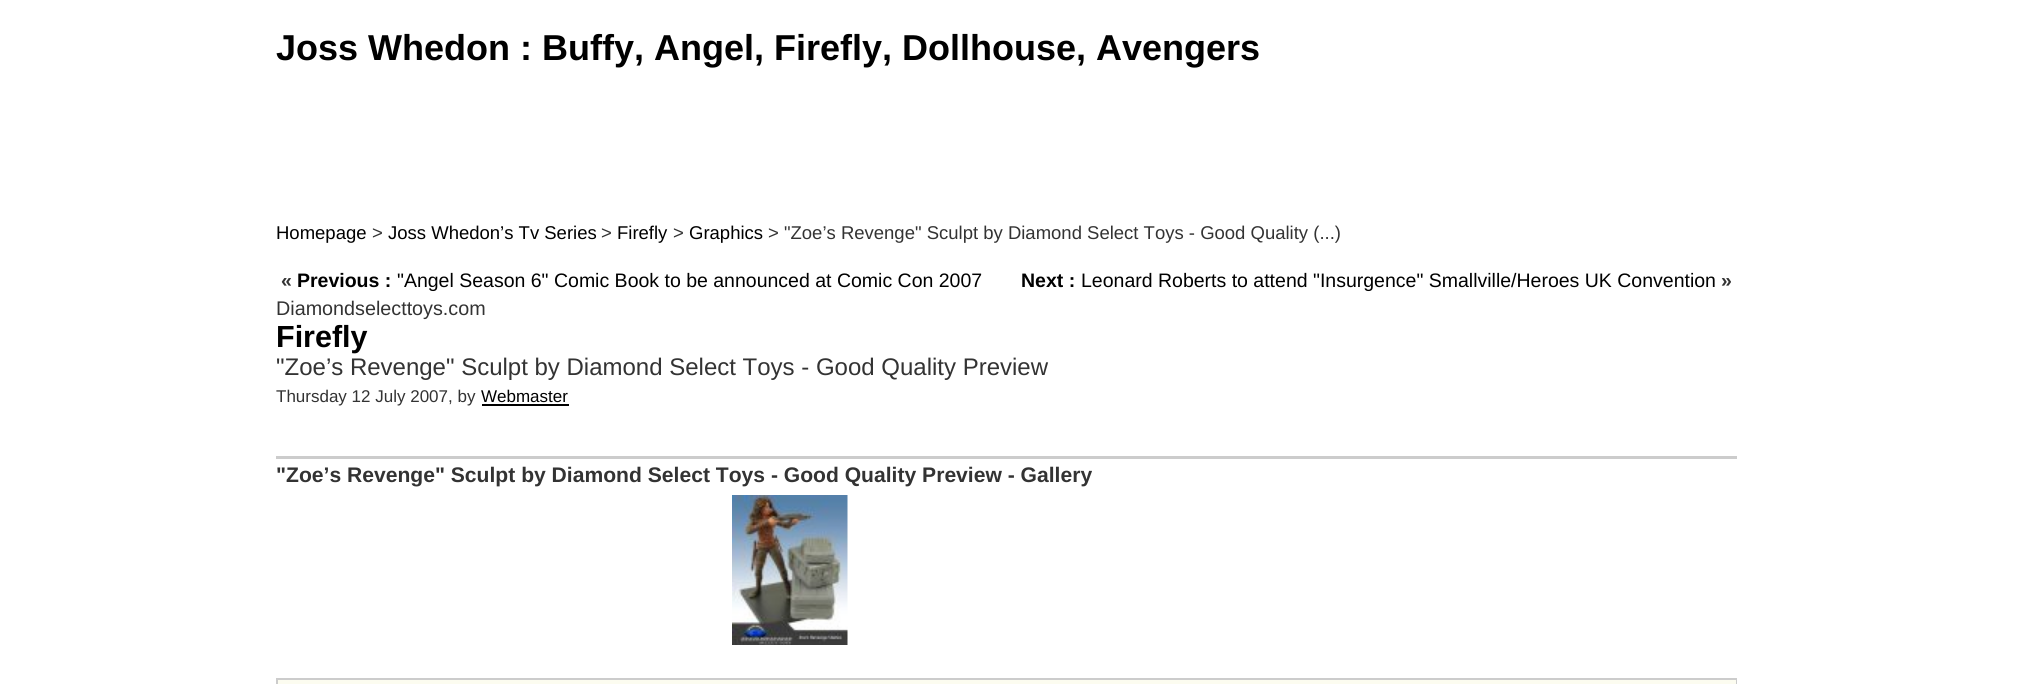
import math
import cairocffi as cairo

surface = cairo.ImageSurface(cairo.FORMAT_RGB24, 2018, 684)
cr = cairo.Context(surface)
options = cairo.FontOptions()
options.set_hint_metrics(cairo.HINT_METRICS_OFF)
options.set_hint_style(cairo.HINT_STYLE_NONE)
cr.set_font_options(options)
cr.set_miter_limit(4)


def use_color(code):
    cr.set_source_rgb(*(v / 255 for v in bytes.fromhex(code[-6:])))


def picture(path, x, y, w, h):
    cr.save()
    cr.set_source_surface(cairo.ImageSurface.create_from_png(path), x, y)
    cr.rectangle(x, y, w, h)
    cr.fill()
    cr.restore()


use_color("#ffffff")
cr.paint()
cr.select_font_face("Liberation Sans", cairo.FONT_SLANT_NORMAL, cairo.FONT_WEIGHT_BOLD)
cr.set_font_size(36)
use_color("#000000")
cr.move_to(276, 60)
cr.show_text("Joss Whedon : Buffy, Angel, Firefly, Dollhouse, Avengers")
cr.select_font_face("Liberation Sans")
cr.set_font_size(18.5)
cr.move_to(276, 239)
cr.show_text("Homepage")
use_color("#333333")
cr.move_to(372, 239)
cr.show_text(">")
use_color("#000000")
cr.move_to(388, 239)
cr.show_text("Joss Whedon’s Tv Series")
use_color("#333333")
cr.move_to(601, 239)
cr.show_text(">")
use_color("#000000")
cr.move_to(617, 239)
cr.show_text("Firefly")
use_color("#333333")
cr.move_to(673, 239)
cr.show_text(">")
use_color("#000000")
cr.move_to(689, 239)
cr.show_text("Graphics")
use_color("#333333")
cr.move_to(768, 239)
cr.show_text("> \"Zoe’s Revenge\" Sculpt by Diamond Select Toys - Good Quality (...)")
cr.select_font_face("Liberation Sans", cairo.FONT_SLANT_NORMAL, cairo.FONT_WEIGHT_BOLD)
cr.set_font_size(19.5)
cr.move_to(281, 287)
cr.show_text("«")
use_color("#000000")
cr.move_to(297, 287)
cr.show_text("Previous :")
cr.select_font_face("Liberation Sans")
cr.move_to(397, 287)
cr.show_text("\"Angel Season 6\" Comic Book to be announced at Comic Con 2007")
cr.select_font_face("Liberation Sans", cairo.FONT_SLANT_NORMAL, cairo.FONT_WEIGHT_BOLD)
cr.move_to(1021, 287)
cr.show_text("Next :")
cr.select_font_face("Liberation Sans")
cr.move_to(1081, 287)
cr.show_text("Leonard Roberts to attend \"Insurgence\" Smallville/Heroes UK Convention")
cr.select_font_face("Liberation Sans", cairo.FONT_SLANT_NORMAL, cairo.FONT_WEIGHT_BOLD)
use_color("#333333")
cr.move_to(1721, 287)
cr.show_text("»")
cr.select_font_face("Liberation Sans")
cr.set_font_size(19.75)
cr.move_to(276, 315)
cr.show_text("Diamondselecttoys.com")
cr.select_font_face("Liberation Sans", cairo.FONT_SLANT_NORMAL, cairo.FONT_WEIGHT_BOLD)
cr.set_font_size(30.5)
use_color("#000000")
cr.move_to(276, 347)
cr.show_text("Firefly")
cr.select_font_face("Liberation Sans")
cr.set_font_size(24)
use_color("#333333")
cr.move_to(276, 375)
cr.show_text("\"Zoe’s Revenge\" Sculpt by Diamond Select Toys - Good Quality Preview")
cr.set_font_size(17)
cr.move_to(276, 402)
cr.show_text("Thursday 12 July 2007, by")
use_color("#000000")
cr.move_to(481, 402)
cr.show_text("Webmaster")
cr.rectangle(482, 404, 87, 2)
cr.fill()
use_color("#cccccc")
cr.rectangle(276, 456, 1461, 3)
cr.fill()
cr.select_font_face("Liberation Sans", cairo.FONT_SLANT_NORMAL, cairo.FONT_WEIGHT_BOLD)
cr.set_font_size(21.1)
use_color("#333333")
cr.move_to(276, 482)
cr.show_text("\"Zoe’s Revenge\" Sculpt by Diamond Select Toys - Good Quality Preview - Gallery")
picture("img1.png", 732, 495, 116, 150)
cr.rectangle(277, 679, 1459, 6)
use_color("#cccccc")
cr.stroke()
use_color("#fcfcf0")
cr.rectangle(278, 680, 1458, 4)
cr.fill()
surface.write_to_png("result.png")
